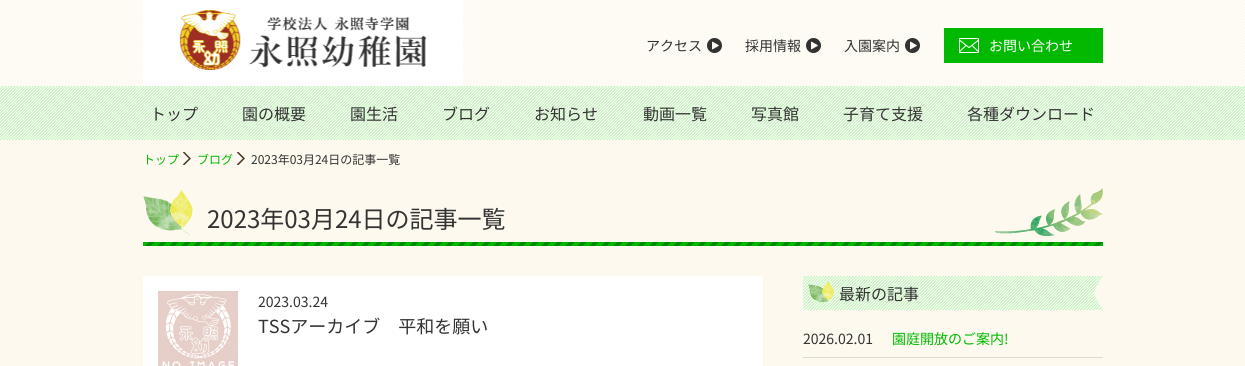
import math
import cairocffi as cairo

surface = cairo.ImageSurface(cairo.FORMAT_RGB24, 1245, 366)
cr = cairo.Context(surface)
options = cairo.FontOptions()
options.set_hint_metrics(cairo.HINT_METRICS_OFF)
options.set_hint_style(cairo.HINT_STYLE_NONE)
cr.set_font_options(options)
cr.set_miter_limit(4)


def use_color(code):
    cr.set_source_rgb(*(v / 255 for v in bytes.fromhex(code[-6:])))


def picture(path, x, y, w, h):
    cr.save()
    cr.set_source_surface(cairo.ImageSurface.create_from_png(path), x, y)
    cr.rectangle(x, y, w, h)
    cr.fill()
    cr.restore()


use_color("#fdf9ee")
cr.paint()
picture("img1.png", 0, 0, 1245, 86)
use_color("#ffffff")
cr.rectangle(143, 0, 320, 86)
cr.fill()
picture("img2.png", 179, 10, 247, 60)
picture("img3.png", 0, 86, 1245, 54)
picture("img4.png", 707, 38, 15, 15)
cr.select_font_face("Noto Sans JP")
cr.set_font_size(14)
use_color("#333333")
cr.move_to(646, 51)
cr.show_text("アクセス")
picture("img4.png", 806, 38, 15, 15)
cr.move_to(745, 51)
cr.show_text("採用情報")
picture("img4.png", 905, 38, 15, 15)
cr.move_to(844, 51)
cr.show_text("入園案内")
use_color("#00b900")
cr.rectangle(944, 28, 159, 35)
cr.fill()
picture("img5.png", 959, 38, 20, 15)
use_color("#ffffff")
cr.move_to(989, 51)
cr.show_text("お問い合わせ")
cr.set_font_size(16)
use_color("#333333")
cr.move_to(150, 120)
cr.show_text("トップ")
cr.move_to(242, 120)
cr.show_text("園の概要")
cr.move_to(350, 120)
cr.show_text("園生活")
cr.move_to(442, 120)
cr.show_text("ブログ")
cr.move_to(534, 120)
cr.show_text("お知らせ")
cr.move_to(643, 120)
cr.show_text("動画一覧")
cr.move_to(751, 120)
cr.show_text("写真館")
cr.move_to(843, 120)
cr.show_text("子育て支援")
cr.move_to(967, 120)
cr.show_text("各種ダウンロード")
picture("img6.png", 183, 152, 8, 13)
cr.set_font_size(12)
use_color("#00b900")
cr.move_to(143, 164)
cr.show_text("トップ")
picture("img6.png", 237, 152, 8, 13)
cr.move_to(197, 164)
cr.show_text("ブログ")
use_color("#333333")
cr.move_to(251, 164)
cr.show_text("2023年03月24日の記事一覧")
picture("img7.png", 143, 242, 960, 4)
picture("img8.png", 143, 190, 50, 46)
cr.set_font_size(24)
cr.move_to(207, 228)
cr.show_text("2023年03月24日の記事一覧")
picture("img9.png", 995, 188, 108, 48)
use_color("#ffffff")
cr.rectangle(143, 276, 620, 90)
cr.fill()
picture("img10.png", 158, 291, 80, 75)
cr.set_font_size(14)
use_color("#333333")
cr.move_to(258, 307)
cr.show_text("2023.03.24")
cr.set_font_size(18)
cr.move_to(258, 333)
cr.show_text("TSSアーカイブ　平和を願い")
picture("img11.png", 803, 276, 300, 34)
picture("img12.png", 808, 281, 26, 24)
cr.set_font_size(16)
cr.move_to(839, 300)
cr.show_text("最新の記事")
use_color("#fdf9ee")
cr.new_path()
cr.move_to(1103, 276)
cr.line_to(1103, 310)
cr.line_to(1093, 293)
cr.close_path()
cr.fill()
use_color("#dfdad0")
cr.rectangle(803, 357, 300, 1)
cr.fill()
cr.set_font_size(14)
use_color("#333333")
cr.move_to(803, 344)
cr.show_text("2026.02.01")
use_color("#00b900")
cr.move_to(892, 344)
cr.show_text("園庭開放のご案内!")
surface.write_to_png("result.png")
